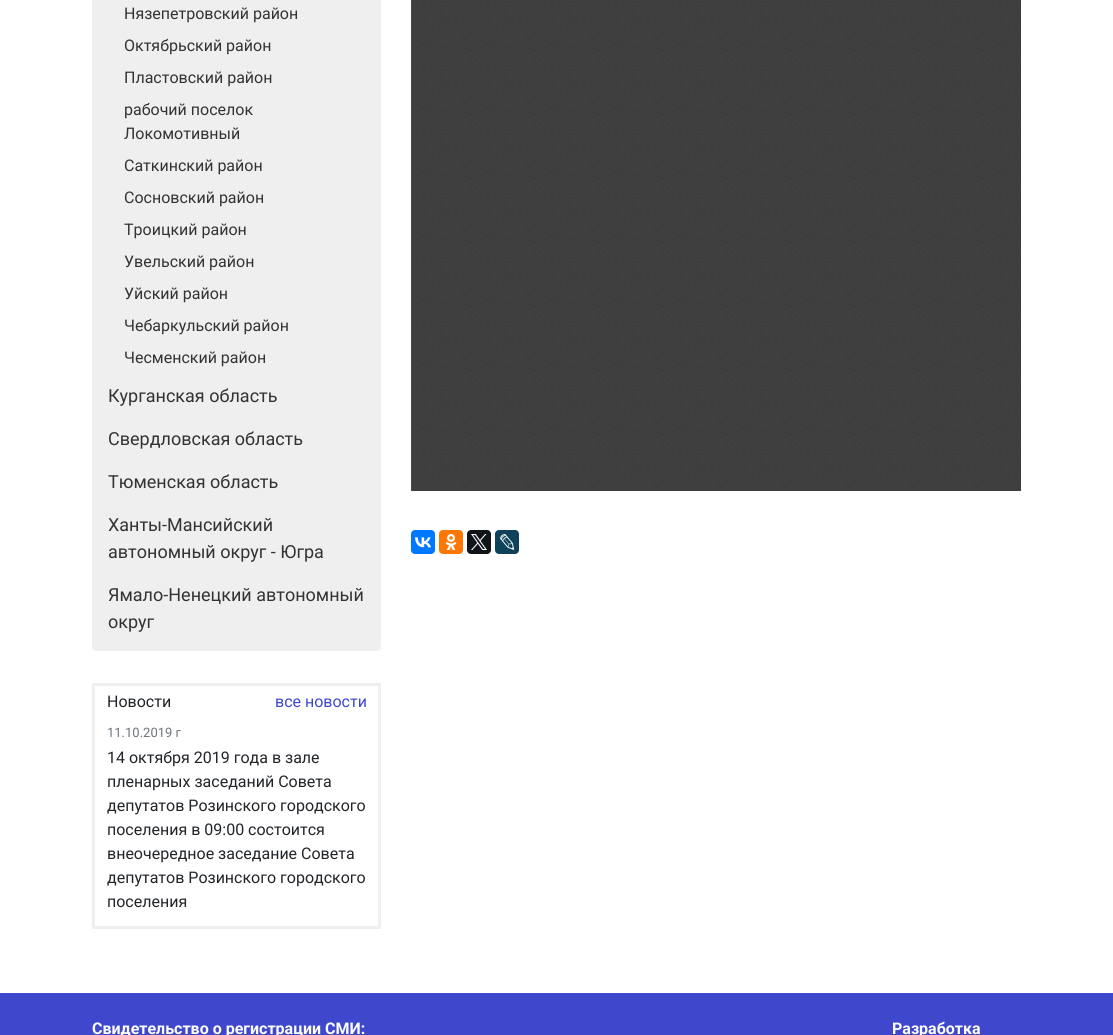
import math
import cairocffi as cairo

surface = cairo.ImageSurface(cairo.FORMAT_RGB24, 1113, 1035)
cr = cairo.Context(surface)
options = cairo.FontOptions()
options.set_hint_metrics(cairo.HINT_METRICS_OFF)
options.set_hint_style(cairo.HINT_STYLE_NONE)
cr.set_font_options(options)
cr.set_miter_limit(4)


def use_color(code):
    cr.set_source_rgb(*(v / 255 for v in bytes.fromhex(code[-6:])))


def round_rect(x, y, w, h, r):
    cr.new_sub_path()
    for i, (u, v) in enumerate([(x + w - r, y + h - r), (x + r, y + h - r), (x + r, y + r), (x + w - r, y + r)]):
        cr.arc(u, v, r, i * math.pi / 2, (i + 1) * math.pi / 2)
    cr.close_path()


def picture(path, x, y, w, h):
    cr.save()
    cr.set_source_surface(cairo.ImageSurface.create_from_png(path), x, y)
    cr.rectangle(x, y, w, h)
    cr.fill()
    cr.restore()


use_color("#ffffff")
cr.paint()
use_color("#efefef")
round_rect(92, -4, 289, 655, 4)
cr.fill()
cr.select_font_face("Roboto")
cr.set_font_size(16)
use_color("#333333")
cr.move_to(124, 19)
cr.show_text("Нязепетровский район")
cr.move_to(124, 51)
cr.show_text("Октябрьский район")
cr.move_to(124, 83)
cr.show_text("Пластовский район")
cr.move_to(124, 115)
cr.show_text("рабочий поселок")
cr.move_to(124, 139)
cr.show_text("Локомотивный")
cr.move_to(124, 171)
cr.show_text("Саткинский район")
cr.move_to(124, 203)
cr.show_text("Сосновский район")
cr.move_to(124, 235)
cr.show_text("Троицкий район")
cr.move_to(124, 267)
cr.show_text("Увельский район")
cr.move_to(124, 299)
cr.show_text("Уйский район")
cr.move_to(124, 331)
cr.show_text("Чебаркульский район")
cr.move_to(124, 363)
cr.show_text("Чесменский район")
cr.set_font_size(18)
cr.move_to(108, 402)
cr.show_text("Курганская область")
cr.move_to(108, 445)
cr.show_text("Свердловская область")
cr.move_to(108, 488)
cr.show_text("Тюменская область")
cr.move_to(108, 531)
cr.show_text("Ханты-Мансийский")
cr.move_to(108, 558)
cr.show_text("автономный округ - Югра")
cr.move_to(108, 601)
cr.show_text("Ямало-Ненецкий автономный")
cr.move_to(108, 628)
cr.show_text("округ")
cr.rectangle(93.5, 684.5, 286, 243)
use_color("#efefef")
cr.set_line_width(3)
cr.stroke()
cr.set_font_size(16)
use_color("#212529")
cr.move_to(107, 707)
cr.show_text("Новости")
use_color("#3f48cc")
cr.move_to(275, 707)
cr.show_text("все новости")
cr.set_font_size(13)
use_color("#6c757d")
cr.move_to(107, 737)
cr.show_text("11.10.2019 г")
cr.set_font_size(16)
use_color("#212529")
cr.move_to(107, 763)
cr.show_text("14 октября 2019 года в зале")
cr.move_to(107, 787)
cr.show_text("пленарных заседаний Совета")
cr.move_to(107, 811)
cr.show_text("депутатов Розинского городского")
cr.move_to(107, 835)
cr.show_text("поселения в 09:00 состоится")
cr.move_to(107, 859)
cr.show_text("внеочередное заседание Совета")
cr.move_to(107, 883)
cr.show_text("депутатов Розинского городского")
cr.move_to(107, 907)
cr.show_text("поселения")
picture("img1.png", 411, 0, 610, 491)
use_color("#0077ff")
round_rect(411, 530, 24, 24, 4)
cr.fill()
picture("img2.png", 415, 537, 16, 11)
use_color("#ff7700")
round_rect(439, 530, 24, 24, 4)
cr.fill()
picture("img3.png", 445, 534, 12, 16)
use_color("#0f1419")
round_rect(467, 530, 24, 24, 4)
cr.fill()
picture("img4.png", 471, 534, 16, 16)
use_color("#0d425a")
round_rect(495, 530, 24, 24, 4)
cr.fill()
picture("img5.png", 500, 534, 15, 16)
use_color("#3f48cc")
cr.rectangle(0, 993, 1113, 42)
cr.fill()
cr.select_font_face("Roboto", cairo.FONT_SLANT_NORMAL, cairo.FONT_WEIGHT_BOLD)
use_color("#ffffff")
cr.move_to(92, 1034)
cr.show_text("Свидетельство о регистрации СМИ:")
cr.move_to(892, 1034)
cr.show_text("Разработка")
surface.write_to_png("result.png")
